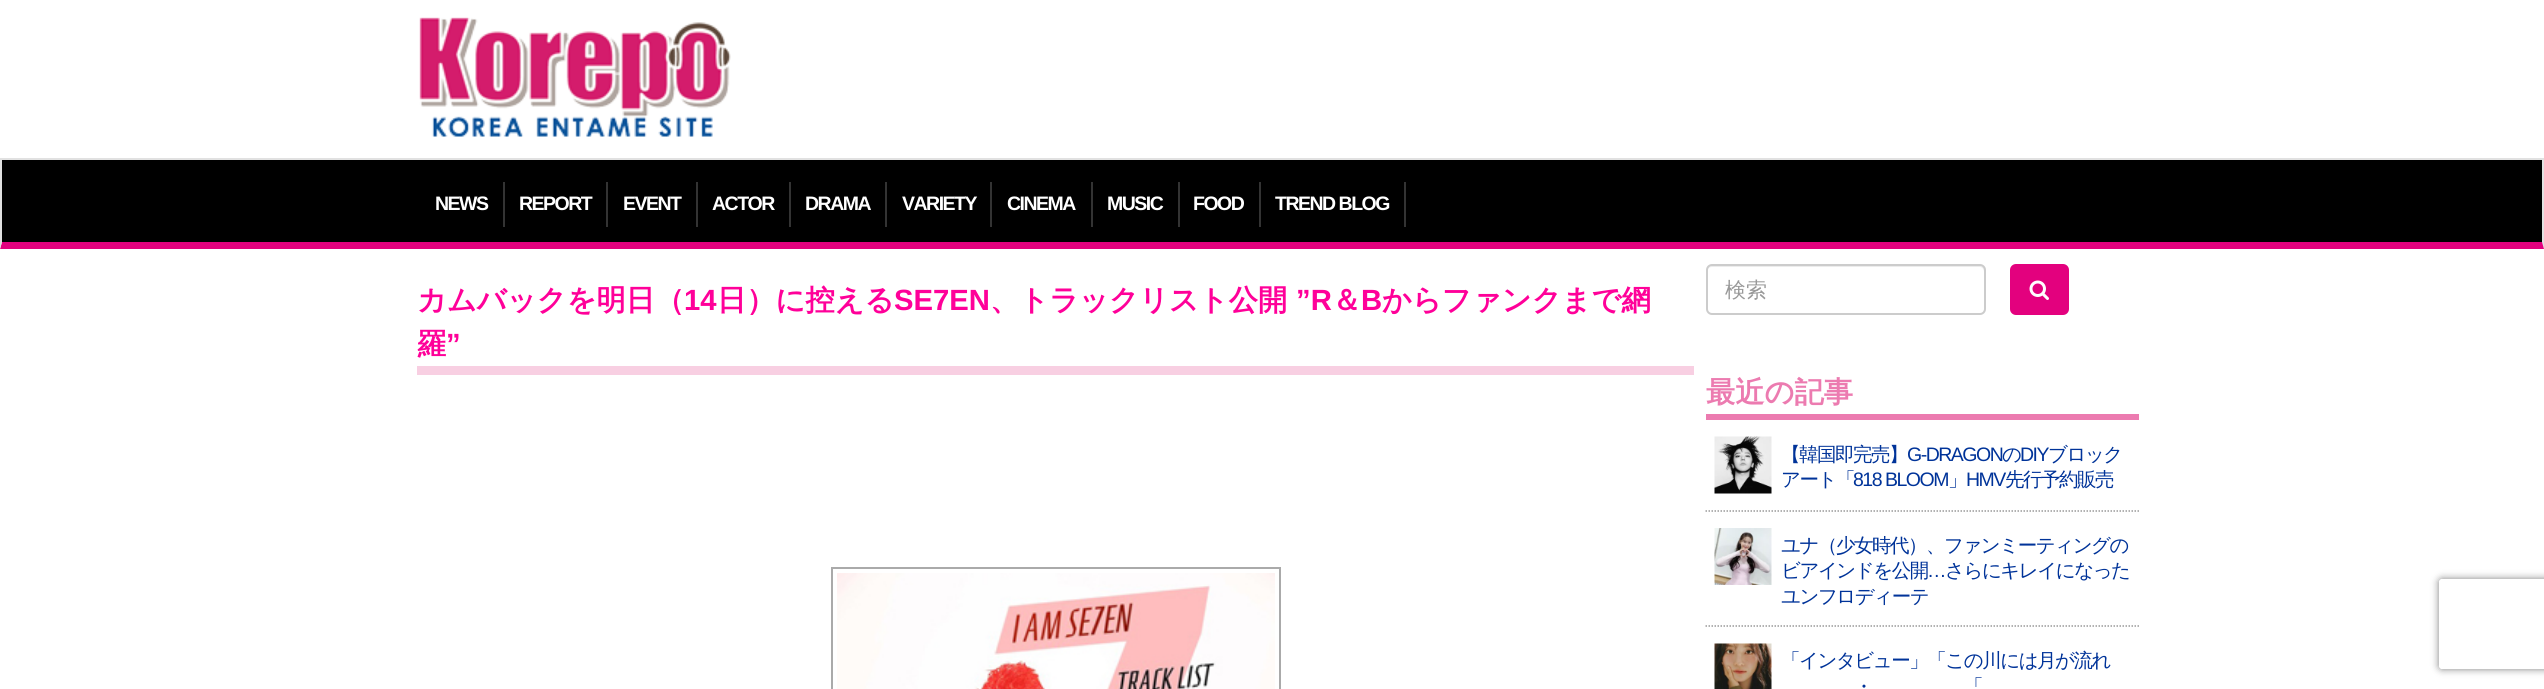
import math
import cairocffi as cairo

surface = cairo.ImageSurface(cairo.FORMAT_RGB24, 2544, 689)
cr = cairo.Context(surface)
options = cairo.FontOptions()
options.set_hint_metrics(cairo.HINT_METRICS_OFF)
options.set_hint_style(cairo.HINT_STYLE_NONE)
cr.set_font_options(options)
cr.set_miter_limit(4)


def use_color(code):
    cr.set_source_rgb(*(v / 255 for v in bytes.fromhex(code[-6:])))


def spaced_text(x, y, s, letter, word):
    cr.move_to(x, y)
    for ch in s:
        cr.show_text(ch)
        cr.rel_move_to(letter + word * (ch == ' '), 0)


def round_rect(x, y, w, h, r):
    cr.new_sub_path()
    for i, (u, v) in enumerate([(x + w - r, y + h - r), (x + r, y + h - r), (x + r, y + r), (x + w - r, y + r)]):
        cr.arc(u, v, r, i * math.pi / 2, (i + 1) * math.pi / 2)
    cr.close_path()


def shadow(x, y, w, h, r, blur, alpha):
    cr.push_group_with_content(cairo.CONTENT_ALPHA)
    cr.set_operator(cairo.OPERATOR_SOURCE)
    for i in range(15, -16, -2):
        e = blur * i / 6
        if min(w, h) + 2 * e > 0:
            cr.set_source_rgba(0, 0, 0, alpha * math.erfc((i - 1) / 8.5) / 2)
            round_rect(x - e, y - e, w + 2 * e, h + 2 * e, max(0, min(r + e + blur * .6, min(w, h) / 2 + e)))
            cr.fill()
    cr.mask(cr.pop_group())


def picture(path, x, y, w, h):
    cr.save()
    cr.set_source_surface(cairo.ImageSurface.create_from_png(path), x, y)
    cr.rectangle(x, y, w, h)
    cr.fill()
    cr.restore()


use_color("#ffffff")
cr.paint()
picture("img1.png", 419, 17, 312, 120)
use_color("#000000")
cr.rectangle(2, 160, 2540, 82)
cr.fill()
use_color("#e1e1e1")
cr.rectangle(0, 158, 2544, 2)
cr.fill()
cr.new_path()
cr.move_to(2544, 158)
cr.line_to(2544, 249)
cr.line_to(2542, 242)
cr.line_to(2542, 159)
cr.close_path()
cr.fill()
use_color("#e3017e")
cr.new_path()
cr.move_to(2544, 249)
cr.line_to(0, 249)
cr.line_to(2, 242)
cr.line_to(2542, 242)
cr.close_path()
cr.fill()
use_color("#e1e1e1")
cr.new_path()
cr.move_to(0, 249)
cr.line_to(0, 158)
cr.line_to(2, 159)
cr.line_to(2, 242)
cr.close_path()
cr.fill()
use_color("#333333")
cr.rectangle(503, 182, 2, 45)
cr.fill()
cr.select_font_face("Liberation Sans", cairo.FONT_SLANT_NORMAL, cairo.FONT_WEIGHT_BOLD)
cr.set_font_size(19.5)
use_color("#ffffff")
spaced_text(435, 210, "NEWS", -1.5, 0)
use_color("#333333")
cr.rectangle(606, 182, 2, 45)
cr.fill()
use_color("#ffffff")
spaced_text(519, 210, "REPORT", -1.5, 0)
use_color("#333333")
cr.rectangle(696, 182, 2, 45)
cr.fill()
use_color("#ffffff")
spaced_text(623, 210, "EVENT", -1.5, 0)
use_color("#333333")
cr.rectangle(789, 182, 2, 45)
cr.fill()
use_color("#ffffff")
spaced_text(712, 210, "ACTOR", -1.5, 0)
use_color("#333333")
cr.rectangle(885, 182, 2, 45)
cr.fill()
use_color("#ffffff")
spaced_text(805, 210, "DRAMA", -1.5, 0)
use_color("#333333")
cr.rectangle(990, 182, 2, 45)
cr.fill()
use_color("#ffffff")
spaced_text(902, 210, "VARIETY", -1.5, 0)
use_color("#333333")
cr.rectangle(1091, 182, 2, 45)
cr.fill()
use_color("#ffffff")
spaced_text(1007, 210, "CINEMA", -1.5, 0)
use_color("#333333")
cr.rectangle(1178, 182, 2, 45)
cr.fill()
use_color("#ffffff")
spaced_text(1107, 210, "MUSIC", -1.5, 0)
use_color("#333333")
cr.rectangle(1259, 182, 2, 45)
cr.fill()
use_color("#ffffff")
spaced_text(1193, 210, "FOOD", -1.5, 0)
use_color("#333333")
cr.rectangle(1404, 182, 2, 45)
cr.fill()
use_color("#ffffff")
spaced_text(1275, 210, "TREND BLOG", -1.5, 0)
use_color("#f8cfe2")
cr.rectangle(417, 366, 1277, 9)
cr.fill()
cr.select_font_face("WenQuanYi Zen Hei", cairo.FONT_SLANT_NORMAL, cairo.FONT_WEIGHT_BOLD)
cr.set_font_size(29.25)
use_color("#ff0099")
cr.move_to(417, 310)
cr.show_text("カムバックを明日（")
cr.select_font_face("Liberation Sans", cairo.FONT_SLANT_NORMAL, cairo.FONT_WEIGHT_BOLD)
cr.move_to(684, 310)
cr.show_text("14")
cr.select_font_face("WenQuanYi Zen Hei", cairo.FONT_SLANT_NORMAL, cairo.FONT_WEIGHT_BOLD)
cr.move_to(717, 310)
cr.show_text("日）に控える")
cr.select_font_face("Liberation Sans", cairo.FONT_SLANT_NORMAL, cairo.FONT_WEIGHT_BOLD)
cr.move_to(894, 310)
cr.show_text("SE7EN")
cr.select_font_face("WenQuanYi Zen Hei", cairo.FONT_SLANT_NORMAL, cairo.FONT_WEIGHT_BOLD)
cr.move_to(990, 310)
cr.show_text("、トラックリスト公開")
cr.select_font_face("Liberation Sans", cairo.FONT_SLANT_NORMAL, cairo.FONT_WEIGHT_BOLD)
cr.move_to(1296, 310)
cr.show_text("”R")
cr.select_font_face("WenQuanYi Zen Hei", cairo.FONT_SLANT_NORMAL, cairo.FONT_WEIGHT_BOLD)
cr.move_to(1332, 310)
cr.show_text("＆")
cr.select_font_face("Liberation Sans", cairo.FONT_SLANT_NORMAL, cairo.FONT_WEIGHT_BOLD)
cr.move_to(1361, 310)
cr.show_text("B")
cr.select_font_face("WenQuanYi Zen Hei", cairo.FONT_SLANT_NORMAL, cairo.FONT_WEIGHT_BOLD)
cr.move_to(1382, 310)
cr.show_text("からファンクまで網")
cr.move_to(417, 354)
cr.show_text("羅")
cr.select_font_face("Liberation Sans", cairo.FONT_SLANT_NORMAL, cairo.FONT_WEIGHT_BOLD)
cr.move_to(446, 354)
cr.show_text("”")
cr.rectangle(832, 568, 448, 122)
use_color("#aaaaaa")
cr.stroke()
picture("img2.png", 837, 573, 438, 116)
use_color("#ececec")
cr.new_path()
cr.move_to(1712, 267)
cr.line_to(1980, 267)
cr.curve_to(1982, 267, 1984, 269, 1984, 272)
cr.line_to(1984, 310)
cr.line_to(1983, 313)
cr.curve_to(1984, 312, 1985, 310, 1985, 309)
cr.line_to(1985, 271)
cr.curve_to(1985, 268, 1983, 266, 1980, 266)
cr.line_to(1712, 266)
cr.curve_to(1709, 266, 1707, 268, 1707, 271)
cr.line_to(1707, 272)
cr.curve_to(1707, 269, 1709, 267, 1712, 267)
cr.close_path()
cr.fill()
round_rect(1707, 265, 278, 49, 5)
use_color("#cccccc")
cr.stroke()
cr.select_font_face("WenQuanYi Zen Hei Medium")
cr.set_font_size(21)
use_color("#999999")
cr.move_to(1725, 297)
cr.show_text("検索")
use_color("#e3017e")
round_rect(2011, 265, 57, 49, 5)
cr.fill_preserve()
cr.stroke()
picture("img3.png", 2029, 280, 20, 20)
use_color("#ec7bb0")
cr.rectangle(1706, 414, 433, 6)
cr.fill()
cr.select_font_face("WenQuanYi Zen Hei", cairo.FONT_SLANT_NORMAL, cairo.FONT_WEIGHT_BOLD)
cr.set_font_size(29.25)
cr.move_to(1706, 402)
cr.show_text("最近の記事")
cr.new_path()
cr.move_to(1705.5, 511)
cr.line_to(2139, 511)
use_color("#999999")
cr.set_line_width(1.5)
cr.set_dash([1.5, 1.5])
cr.stroke()
picture("img4.png", 1714, 436, 58, 58)
cr.select_font_face("WenQuanYi Zen Hei Medium")
cr.set_font_size(19.5)
use_color("#003399")
spaced_text(1781, 461, "【韓国即完売】", -1.5, 0)
cr.select_font_face("Liberation Sans")
spaced_text(1907, 461, "G-DRAGON", -1.5, 0)
cr.select_font_face("WenQuanYi Zen Hei Medium")
spaced_text(2002, 461, "の", -1.5, 0)
cr.select_font_face("Liberation Sans")
spaced_text(2020, 461, "DIY", -1.5, 0)
cr.select_font_face("WenQuanYi Zen Hei Medium")
spaced_text(2048, 461, "ブロック", -1.5, 0)
spaced_text(1781, 486, "アート「", -1.5, 0)
cr.select_font_face("Liberation Sans")
spaced_text(1853, 486, "818 BLOOM", -1.5, 0)
cr.select_font_face("WenQuanYi Zen Hei Medium")
spaced_text(1948, 486, "」", -1.5, 0)
cr.select_font_face("Liberation Sans")
spaced_text(1966, 486, "HMV", -1.5, 0)
cr.select_font_face("WenQuanYi Zen Hei Medium")
spaced_text(2005, 486, "先行予約販売", -1.5, 0)
cr.new_path()
cr.move_to(1705.5, 626)
cr.line_to(2139, 626)
use_color("#999999")
cr.stroke()
picture("img5.png", 1714, 528, 58, 57)
use_color("#003399")
spaced_text(1781, 552, "ユナ（少女時代）、ファンミーティングの", -1.5, 0)
spaced_text(1781, 577, "ビアインドを公開", -1.5, 0)
cr.select_font_face("Liberation Sans")
spaced_text(1927, 577, "…", -1.5, 0)
cr.select_font_face("WenQuanYi Zen Hei Medium")
spaced_text(1945, 577, "さらにキレイになった", -1.5, 0)
spaced_text(1781, 603, "ユンフロディーテ", -1.5, 0)
picture("img6.png", 1714, 643, 58, 46)
spaced_text(1781, 667, "「インタビュー」「この川には月が流れ", -1.5, 0)
spaced_text(1854, 693, "・", -1.5, 0)
spaced_text(1964, 693, "「", -1.5, 0)
cr.save()
cr.set_fill_rule(cairo.FILL_RULE_EVEN_ODD)
cr.new_path()
cr.move_to(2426, 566)
cr.line_to(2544, 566)
cr.line_to(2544, 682)
cr.line_to(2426, 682)
cr.close_path()
cr.move_to(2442, 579)
cr.line_to(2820, 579)
cr.curve_to(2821.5, 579, 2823, 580.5, 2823, 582)
cr.line_to(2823, 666)
cr.curve_to(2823, 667.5, 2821.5, 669, 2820, 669)
cr.line_to(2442, 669)
cr.curve_to(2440.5, 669, 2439, 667.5, 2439, 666)
cr.line_to(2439, 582)
cr.curve_to(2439, 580.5, 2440.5, 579, 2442, 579)
cr.close_path()
cr.clip()
use_color("#808080")
shadow(2439, 579, 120, 90, 3, 4, 1)
cr.restore()
surface.write_to_png("result.png")
